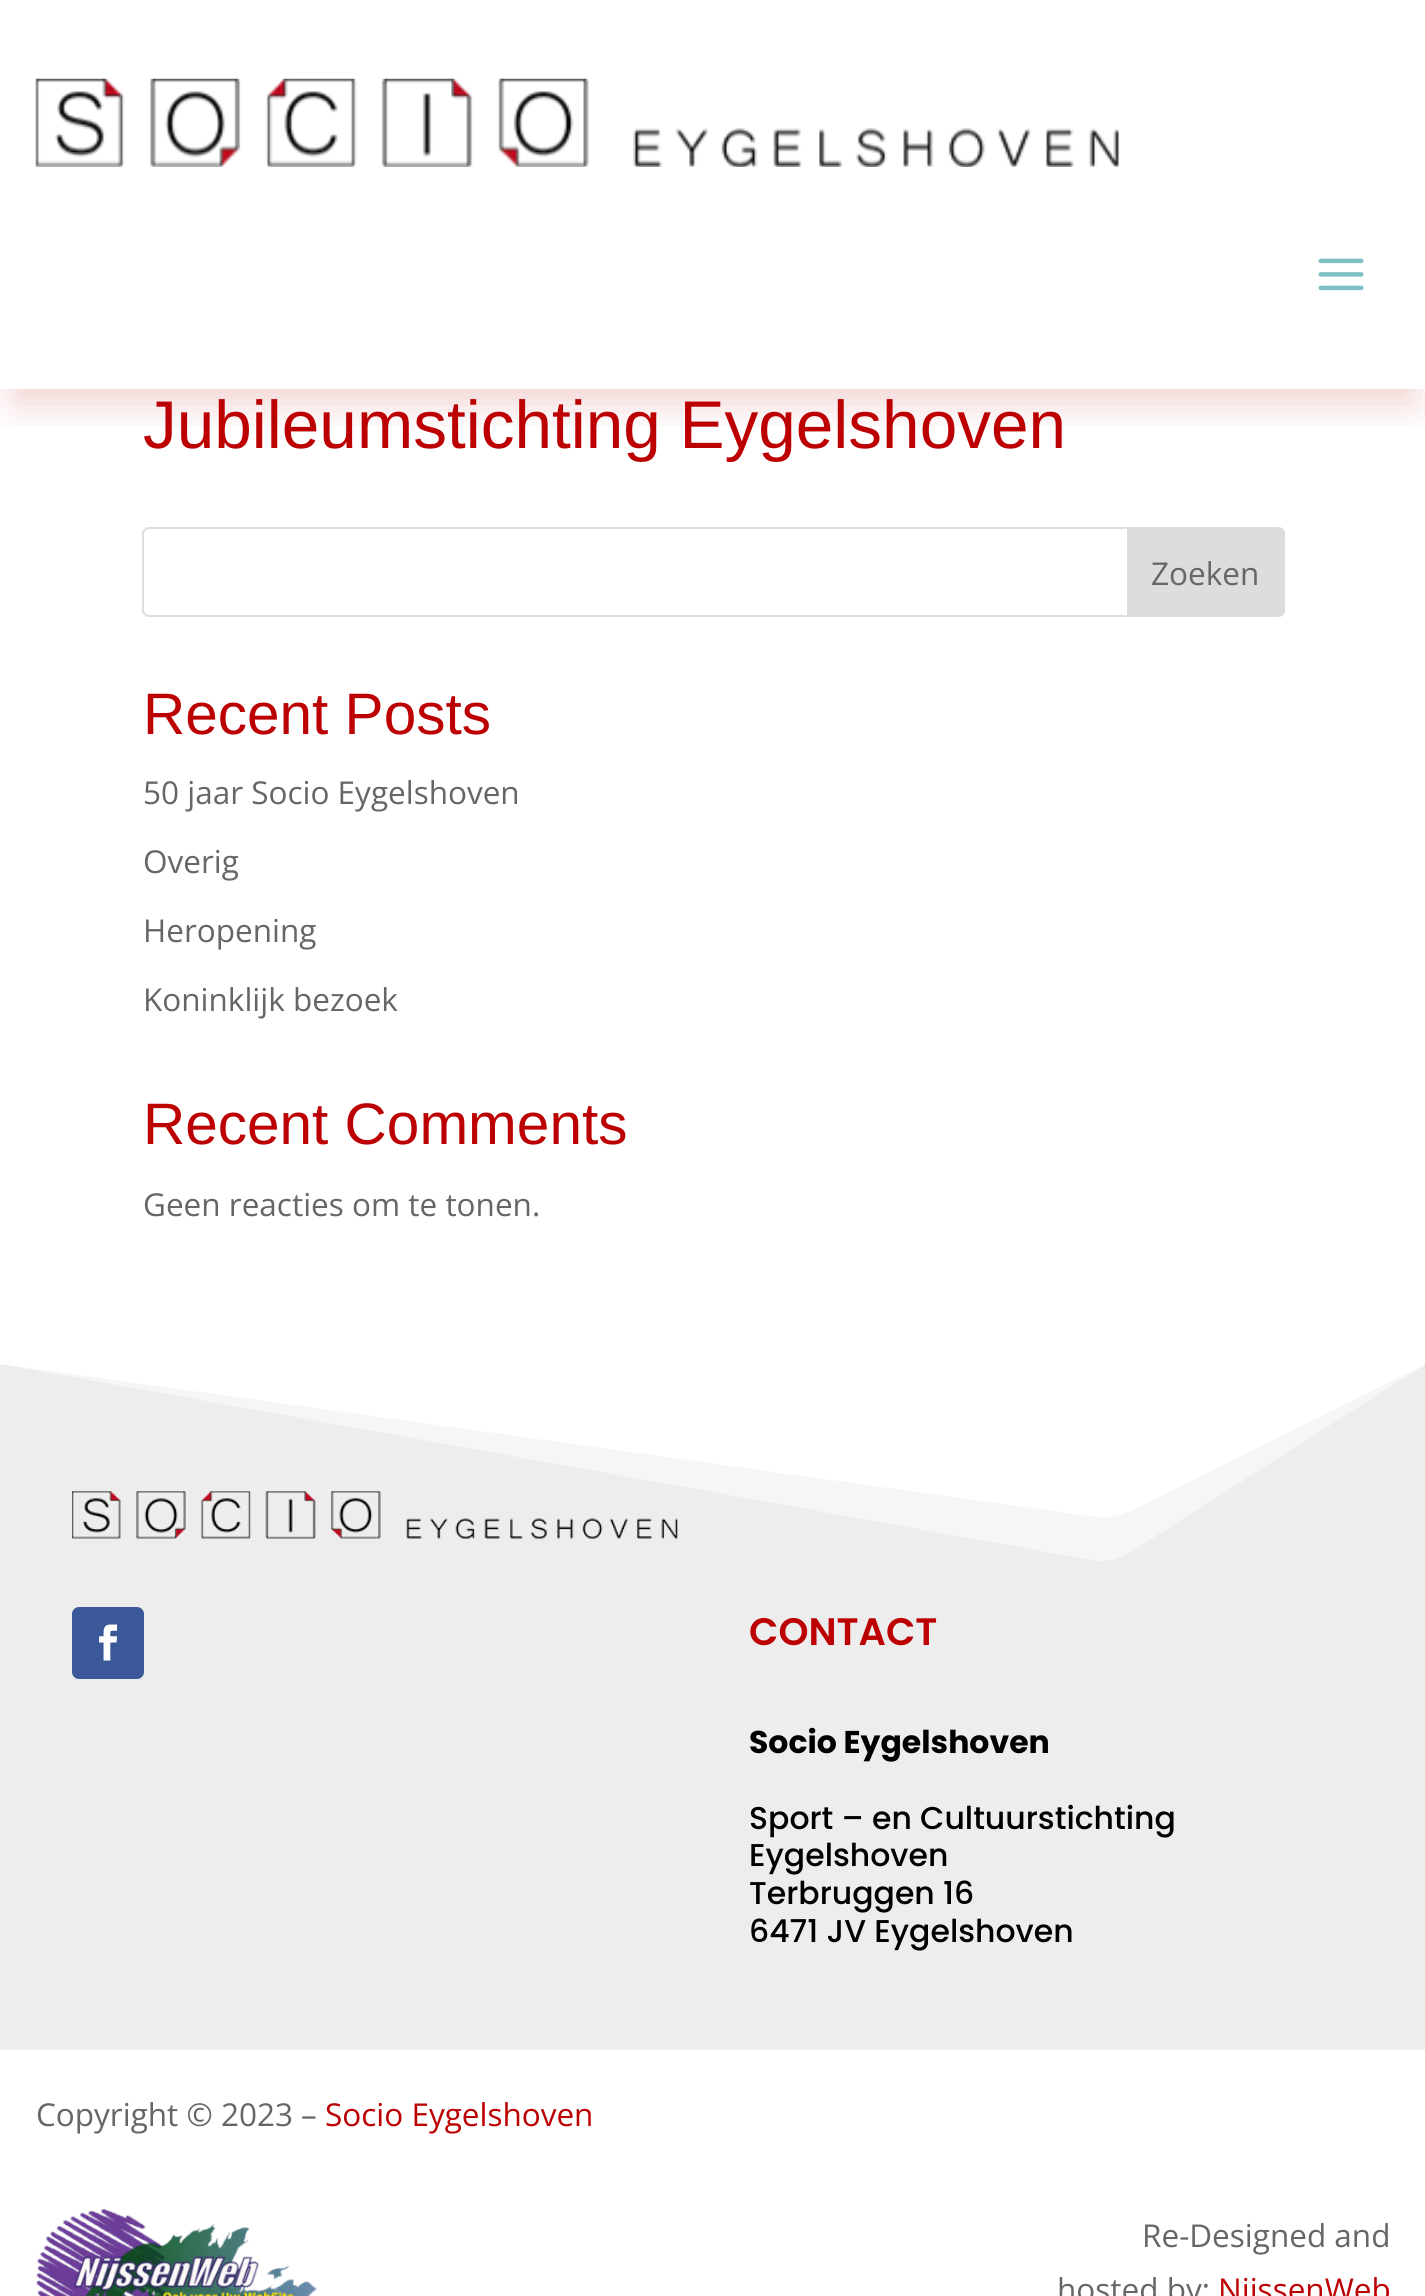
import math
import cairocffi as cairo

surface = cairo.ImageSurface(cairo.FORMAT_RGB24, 1425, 2296)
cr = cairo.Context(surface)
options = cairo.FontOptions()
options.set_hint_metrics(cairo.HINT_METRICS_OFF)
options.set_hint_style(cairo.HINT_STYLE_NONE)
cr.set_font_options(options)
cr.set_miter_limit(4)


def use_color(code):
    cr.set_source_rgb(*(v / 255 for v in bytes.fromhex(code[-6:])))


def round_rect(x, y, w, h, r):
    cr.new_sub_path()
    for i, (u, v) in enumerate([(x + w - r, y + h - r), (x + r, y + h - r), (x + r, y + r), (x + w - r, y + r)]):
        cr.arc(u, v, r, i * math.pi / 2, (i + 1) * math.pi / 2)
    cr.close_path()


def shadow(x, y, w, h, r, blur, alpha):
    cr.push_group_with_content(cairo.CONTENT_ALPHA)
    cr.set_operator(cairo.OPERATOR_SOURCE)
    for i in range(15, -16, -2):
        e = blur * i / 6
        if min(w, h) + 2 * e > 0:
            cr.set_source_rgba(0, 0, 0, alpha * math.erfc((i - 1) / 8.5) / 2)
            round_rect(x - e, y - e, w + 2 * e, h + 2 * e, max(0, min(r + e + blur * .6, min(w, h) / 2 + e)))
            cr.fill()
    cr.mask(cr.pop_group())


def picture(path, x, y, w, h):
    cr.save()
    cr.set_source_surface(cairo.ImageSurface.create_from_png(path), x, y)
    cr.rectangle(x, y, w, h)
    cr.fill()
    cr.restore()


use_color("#ffffff")
cr.paint()
cr.save()
cr.rectangle(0, 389, 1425, 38)
cr.clip()
use_color("#bc0002")
shadow(14, 41, 1399, 362, 0, 20, 0.18)
cr.restore()
picture("img1.png", 35, 78, 1085, 89)
picture("img2.png", 1318, 258, 46, 33)
cr.select_font_face("Liberation Sans")
cr.set_font_size(67.5)
use_color("#bc0002")
cr.move_to(143, 448)
cr.show_text("Jubileumstichting Eygelshoven")
round_rect(143, 528, 1141, 88, 6)
use_color("#dddddd")
cr.stroke()
cr.new_path()
cr.move_to(1128, 528)
cr.line_to(1278, 528)
cr.curve_to(1281.5, 528, 1284, 530.5, 1284, 534)
cr.line_to(1284, 610)
cr.curve_to(1284, 613.5, 1281.5, 616, 1278, 616)
cr.line_to(1128, 616)
cr.close_path()
cr.fill_preserve()
cr.stroke()
cr.select_font_face("Open Sans")
cr.set_font_size(31.5)
use_color("#666666")
cr.move_to(1151, 585)
cr.show_text("Zoeken")
cr.select_font_face("Liberation Sans")
cr.set_font_size(58.5)
use_color("#bc0002")
cr.move_to(143, 734)
cr.show_text("Recent Posts")
cr.select_font_face("Open Sans")
cr.set_font_size(31.5)
use_color("#666666")
cr.move_to(143, 804)
cr.show_text("50 jaar Socio Eygelshoven")
cr.move_to(143, 873)
cr.show_text("Overig")
cr.move_to(143, 942)
cr.show_text("Heropening")
cr.move_to(143, 1011)
cr.show_text("Koninklijk bezoek")
cr.select_font_face("Liberation Sans")
cr.set_font_size(58.5)
use_color("#bc0002")
cr.move_to(143, 1144)
cr.show_text("Recent Comments")
cr.select_font_face("Open Sans")
cr.set_font_size(31.5)
use_color("#666666")
cr.move_to(143, 1216)
cr.show_text("Geen reacties om te tonen.")
use_color("#ededed")
cr.rectangle(0, 1364, 1425, 686)
cr.fill()
use_color("#f6f6f6")
cr.new_path()
cr.move_to(1091, 1560)
cr.line_to(0, 1364)
cr.line_to(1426, 1364)
cr.line_to(1134, 1550)
cr.curve_to(1121, 1559, 1106, 1563, 1091, 1560)
cr.close_path()
cr.fill()
use_color("#ffffff")
cr.new_path()
cr.move_to(1096, 1517)
cr.line_to(0, 1364)
cr.line_to(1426, 1364)
cr.line_to(1130, 1511)
cr.curve_to(1119, 1516, 1107, 1518, 1096, 1517)
cr.close_path()
cr.fill()
picture("img3.png", 72, 1491, 606, 48)
use_color("#3b5998")
round_rect(72, 1607, 72, 72, 7)
cr.fill()
picture("img4.png", 99, 1624, 19, 37)
cr.select_font_face("Poppins SemiBold")
cr.set_font_size(38.25)
use_color("#bc0002")
cr.move_to(749, 1645)
cr.show_text("CONTACT")
cr.select_font_face("Poppins", cairo.FONT_SLANT_NORMAL, cairo.FONT_WEIGHT_BOLD)
cr.set_font_size(31.5)
use_color("#000000")
cr.move_to(749, 1753)
cr.show_text("Socio Eygelshoven")
cr.select_font_face("Poppins Medium")
cr.move_to(749, 1829)
cr.show_text("Sport – en Cultuurstichting")
cr.move_to(749, 1866)
cr.show_text("Eygelshoven")
cr.move_to(749, 1904)
cr.show_text("Terbruggen 16")
cr.move_to(749, 1942)
cr.show_text("6471 JV Eygelshoven")
cr.select_font_face("Open Sans")
use_color("#666666")
cr.move_to(36, 2126)
cr.show_text("Copyright © 2023 –")
use_color("#bc0002")
cr.move_to(325, 2126)
cr.show_text("Socio Eygelshoven")
picture("img5.png", 36, 2209, 282, 87)
use_color("#666666")
cr.move_to(1142, 2247)
cr.show_text("Re-Designed and")
cr.move_to(1057, 2301)
cr.show_text("hosted by:")
use_color("#bc0002")
cr.move_to(1218, 2301)
cr.show_text("NijssenWeb")
surface.write_to_png("result.png")
